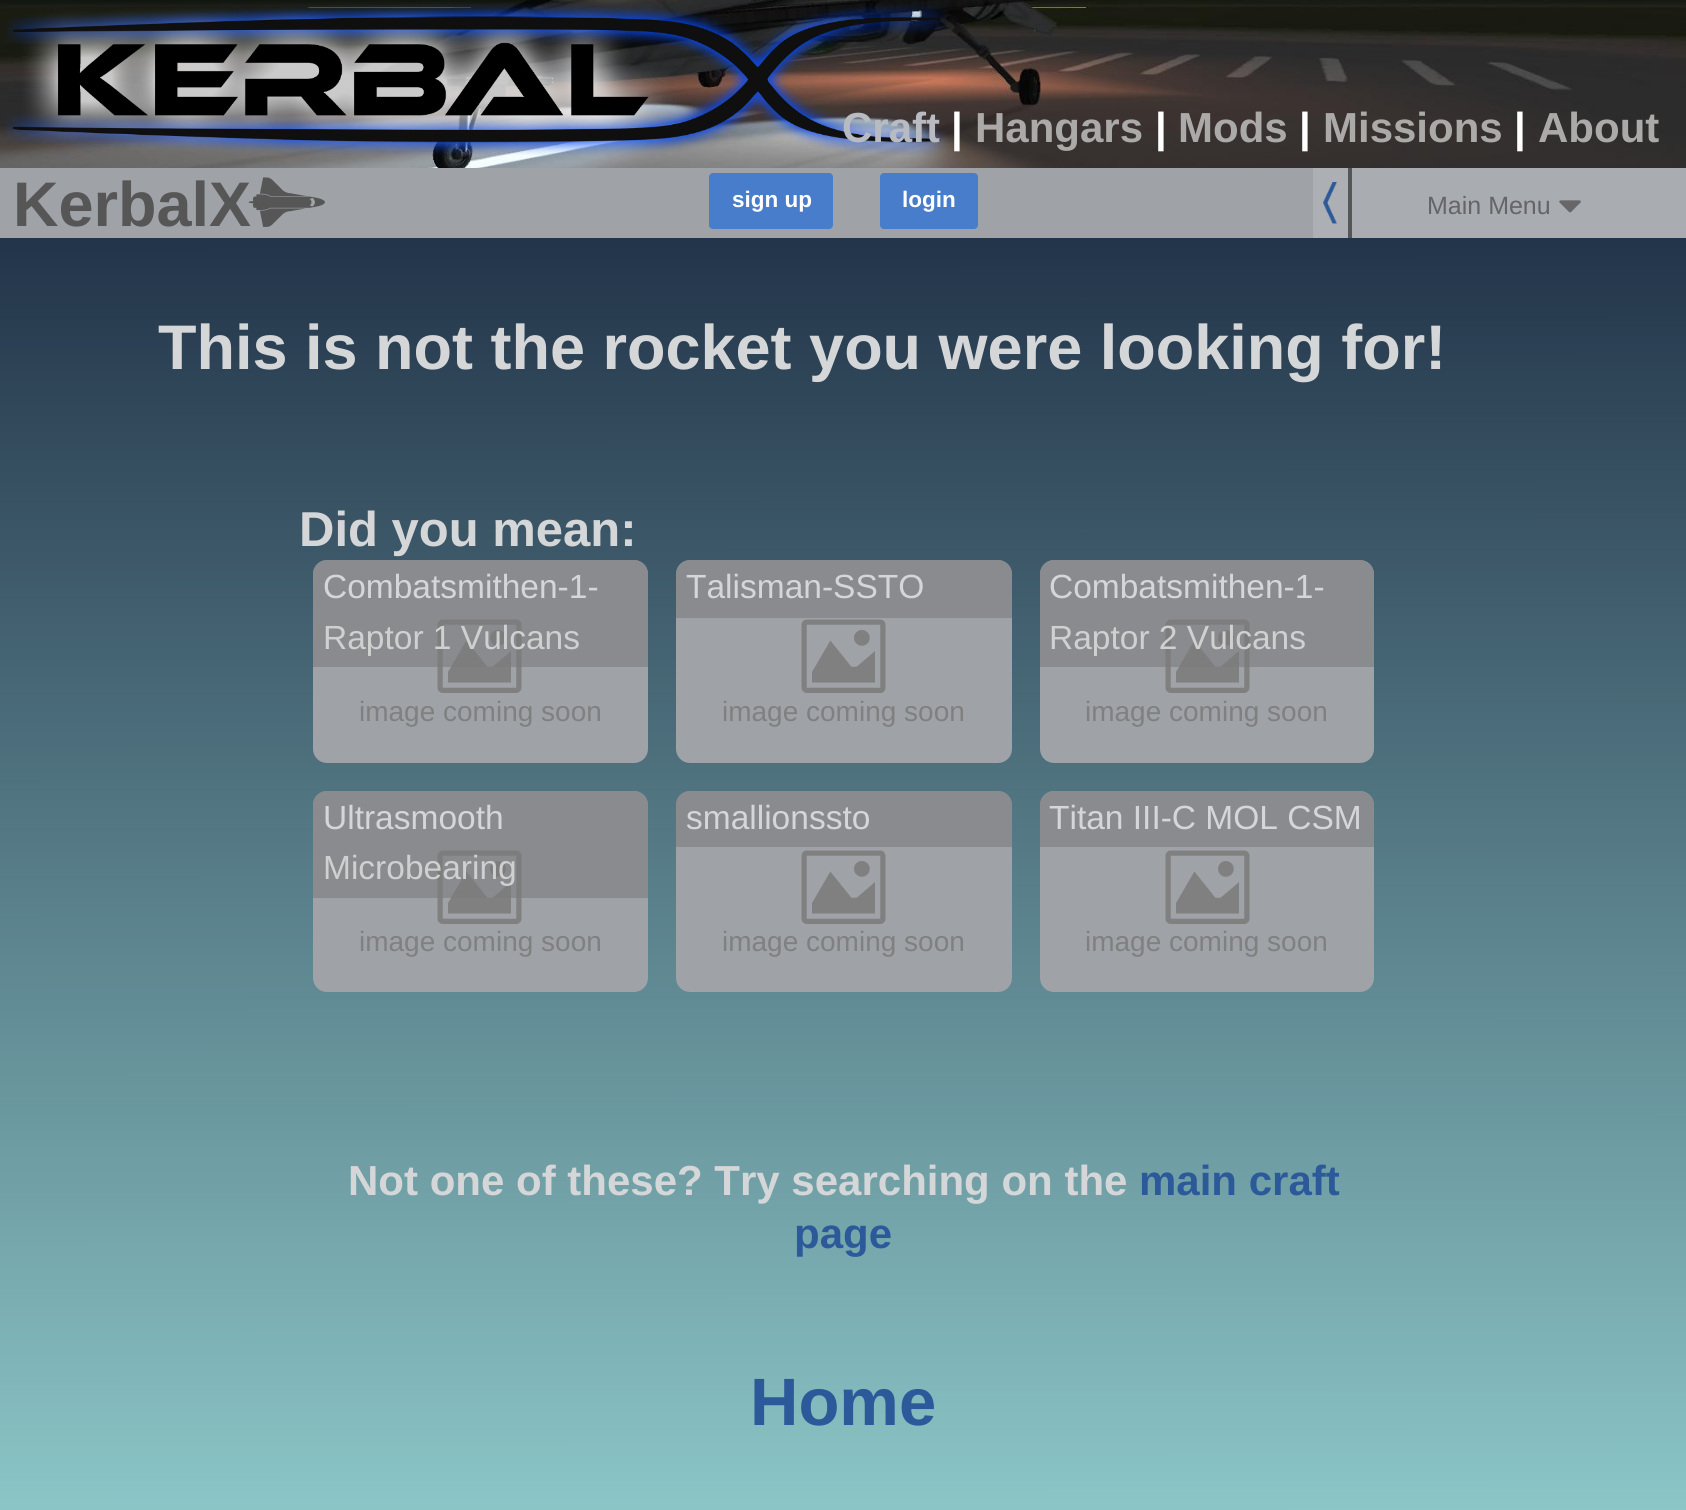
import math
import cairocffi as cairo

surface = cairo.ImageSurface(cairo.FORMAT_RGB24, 1686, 1510)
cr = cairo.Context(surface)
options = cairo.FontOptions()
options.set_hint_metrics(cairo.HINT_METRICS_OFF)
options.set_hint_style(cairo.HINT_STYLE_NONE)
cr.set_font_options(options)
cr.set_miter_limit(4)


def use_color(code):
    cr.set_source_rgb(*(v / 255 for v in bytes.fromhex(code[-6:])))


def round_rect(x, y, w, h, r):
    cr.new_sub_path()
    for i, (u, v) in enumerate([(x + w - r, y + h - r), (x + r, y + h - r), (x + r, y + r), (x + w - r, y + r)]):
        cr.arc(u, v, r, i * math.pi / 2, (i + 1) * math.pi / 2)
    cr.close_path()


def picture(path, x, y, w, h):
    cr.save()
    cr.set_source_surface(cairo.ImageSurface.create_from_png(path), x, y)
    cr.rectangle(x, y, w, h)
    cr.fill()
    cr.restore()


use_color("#ffffff")
cr.paint()
gradient = cairo.LinearGradient(843, 0, 844, 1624)
gradient.add_color_stop_rgba(0, 0.059, 0.098, 0.196, 1)
gradient.add_color_stop_rgba(1, 0.584, 0.827, 0.824, 1)
cr.set_source(gradient)
cr.rectangle(0, 238, 1686, 1272)
cr.fill()
picture("img1.png", 0, 0, 1686, 168)
picture("img2.png", 5, 4, 943, 151)
cr.select_font_face("Liberation Sans", cairo.FONT_SLANT_NORMAL, cairo.FONT_WEIGHT_BOLD)
cr.set_font_size(42)
use_color("#b8bbc2")
cr.move_to(842, 142)
cr.show_text("Craft")
use_color("#ffffff")
cr.move_to(951, 142)
cr.show_text("|")
use_color("#acaaa9")
cr.move_to(975, 142)
cr.show_text("Hangars")
use_color("#ffffff")
cr.move_to(1155, 142)
cr.show_text("|")
use_color("#acaaa9")
cr.move_to(1178, 142)
cr.show_text("Mods")
use_color("#ffffff")
cr.move_to(1299, 142)
cr.show_text("|")
use_color("#acaaa9")
cr.move_to(1323, 142)
cr.show_text("Missions")
use_color("#ffffff")
cr.move_to(1514, 142)
cr.show_text("|")
use_color("#acaaa9")
cr.move_to(1538, 142)
cr.show_text("About")
use_color("#9fa2a7")
cr.rectangle(0, 168, 1313, 70)
cr.fill()
cr.set_font_size(63)
use_color("#565657")
cr.move_to(13, 226)
cr.show_text("KerbalX")
picture("img3.png", 248, 177, 77, 50)
use_color("#477dca")
round_rect(709, 173, 124, 56, 4)
cr.fill()
cr.set_font_size(22.5)
use_color("#ffffff")
cr.move_to(732, 207)
cr.show_text("sign up")
use_color("#477dca")
round_rect(880, 173, 98, 56, 4)
cr.fill()
use_color("#ffffff")
cr.move_to(902, 207)
cr.show_text("login")
use_color("#acafb3")
cr.rectangle(1313, 168, 35, 70)
cr.fill()
use_color("#565657")
cr.rectangle(1348, 168, 4, 70)
cr.fill()
picture("img4.png", 1323, 182, 14, 42)
use_color("#a9acb1")
cr.rectangle(1352, 168, 334, 70)
cr.fill()
cr.select_font_face("Liberation Sans")
cr.set_font_size(25)
use_color("#656567")
cr.move_to(1427, 214)
cr.show_text("Main Menu")
picture("img5.png", 1559, 200, 22, 13)
cr.select_font_face("Liberation Sans", cairo.FONT_SLANT_NORMAL, cairo.FONT_WEIGHT_BOLD)
cr.set_font_size(63)
use_color("#d4d6d8")
cr.move_to(158, 369)
cr.show_text("This is not the rocket you were looking for!")
cr.set_font_size(49)
cr.move_to(299, 546)
cr.show_text("Did you mean:")
use_color("#9fa2a7")
round_rect(313, 560, 335, 203, 14)
cr.fill()
picture("img6.png", 437, 619, 85, 74)
cr.set_source_rgba(0.486, 0.486, 0.49, 0.6)
cr.new_path()
cr.move_to(327, 560)
cr.line_to(634, 560)
cr.curve_to(641.5, 560, 648, 566.5, 648, 574)
cr.line_to(648, 667)
cr.line_to(313, 667)
cr.line_to(313, 574)
cr.curve_to(313, 566.5, 319.5, 560, 327, 560)
cr.close_path()
cr.fill()
cr.select_font_face("Liberation Sans")
cr.set_font_size(33.5)
use_color("#d4d6d8")
cr.move_to(323, 598)
cr.show_text("Combatsmithen-1-")
use_color("#d0d0d1")
cr.move_to(323, 649)
cr.show_text("Raptor 1 Vulcans")
cr.set_font_size(28)
use_color("#808080")
cr.move_to(359, 721)
cr.show_text("image coming soon")
use_color("#9fa2a7")
round_rect(676, 560, 336, 203, 14)
cr.fill()
cr.save()
round_rect(676, 560, 336, 203, 14)
cr.clip()
cr.set_source_rgba(0.486, 0.486, 0.49, 0.6)
cr.new_path()
cr.move_to(690, 560)
cr.line_to(1010, 560)
cr.curve_to(1017.5, 560, 1024, 566.5, 1024, 574)
cr.line_to(1024, 618)
cr.line_to(676, 618)
cr.line_to(676, 574)
cr.curve_to(676, 566.5, 682.5, 560, 690, 560)
cr.close_path()
cr.fill()
cr.restore()
cr.set_font_size(33.5)
use_color("#d4d6d8")
cr.move_to(686, 598)
cr.show_text("Talisman-SSTO")
picture("img6.png", 801, 619, 85, 74)
cr.set_font_size(28)
use_color("#808080")
cr.move_to(722, 721)
cr.show_text("image coming soon")
use_color("#9fa2a7")
round_rect(1040, 560, 334, 203, 14)
cr.fill()
picture("img6.png", 1165, 619, 85, 74)
cr.set_source_rgba(0.486, 0.486, 0.49, 0.6)
cr.new_path()
cr.move_to(1054, 560)
cr.line_to(1360, 560)
cr.curve_to(1367.5, 560, 1374, 566.5, 1374, 574)
cr.line_to(1374, 667)
cr.line_to(1040, 667)
cr.line_to(1040, 574)
cr.curve_to(1040, 566.5, 1046.5, 560, 1054, 560)
cr.close_path()
cr.fill()
cr.set_font_size(33.5)
use_color("#d4d6d8")
cr.move_to(1049, 598)
cr.show_text("Combatsmithen-1-")
use_color("#d0d0d1")
cr.move_to(1049, 649)
cr.show_text("Raptor 2 Vulcans")
cr.set_font_size(28)
use_color("#808080")
cr.move_to(1085, 721)
cr.show_text("image coming soon")
use_color("#9fa2a7")
round_rect(313, 791, 335, 201, 14)
cr.fill()
picture("img6.png", 437, 850, 85, 74)
cr.set_source_rgba(0.486, 0.486, 0.49, 0.6)
cr.new_path()
cr.move_to(327, 791)
cr.line_to(634, 791)
cr.curve_to(641.5, 791, 648, 797.5, 648, 805)
cr.line_to(648, 898)
cr.line_to(313, 898)
cr.line_to(313, 805)
cr.curve_to(313, 797.5, 319.5, 791, 327, 791)
cr.close_path()
cr.fill()
cr.set_font_size(33.5)
use_color("#d4d6d8")
cr.move_to(323, 829)
cr.show_text("Ultrasmooth")
use_color("#d0d0d1")
cr.move_to(323, 879)
cr.show_text("Microbearing")
cr.set_font_size(28)
use_color("#808080")
cr.move_to(359, 951)
cr.show_text("image coming soon")
use_color("#9fa2a7")
round_rect(676, 791, 336, 201, 14)
cr.fill()
cr.save()
round_rect(676, 791, 336, 201, 14)
cr.clip()
cr.set_source_rgba(0.486, 0.486, 0.49, 0.6)
cr.new_path()
cr.move_to(690, 791)
cr.line_to(1010, 791)
cr.curve_to(1017.5, 791, 1024, 797.5, 1024, 805)
cr.line_to(1024, 847)
cr.line_to(676, 847)
cr.line_to(676, 805)
cr.curve_to(676, 797.5, 682.5, 791, 690, 791)
cr.close_path()
cr.fill()
cr.restore()
cr.set_font_size(33.5)
use_color("#d4d6d8")
cr.move_to(686, 829)
cr.show_text("smallionssto")
picture("img6.png", 801, 850, 85, 74)
cr.set_font_size(28)
use_color("#808080")
cr.move_to(722, 951)
cr.show_text("image coming soon")
use_color("#9fa2a7")
round_rect(1040, 791, 334, 201, 14)
cr.fill()
cr.set_source_rgba(0.486, 0.486, 0.49, 0.6)
cr.new_path()
cr.move_to(1054, 791)
cr.line_to(1360, 791)
cr.curve_to(1367.5, 791, 1374, 797.5, 1374, 805)
cr.line_to(1374, 847)
cr.line_to(1040, 847)
cr.line_to(1040, 805)
cr.curve_to(1040, 797.5, 1046.5, 791, 1054, 791)
cr.close_path()
cr.fill()
cr.set_font_size(33.5)
use_color("#d4d6d8")
cr.move_to(1049, 829)
cr.show_text("Titan III-C MOL CSM")
picture("img6.png", 1165, 850, 85, 74)
cr.set_font_size(28)
use_color("#808080")
cr.move_to(1085, 951)
cr.show_text("image coming soon")
cr.select_font_face("Liberation Sans", cairo.FONT_SLANT_NORMAL, cairo.FONT_WEIGHT_BOLD)
cr.set_font_size(42)
use_color("#d4d6d8")
cr.move_to(348, 1195)
cr.show_text("Not one of these? Try searching on the")
use_color("#2c5999")
cr.move_to(1139, 1195)
cr.show_text("main craft")
cr.move_to(794, 1248)
cr.show_text("page")
cr.set_font_size(67)
cr.move_to(750, 1425)
cr.show_text("Home")
surface.write_to_png("result.png")
